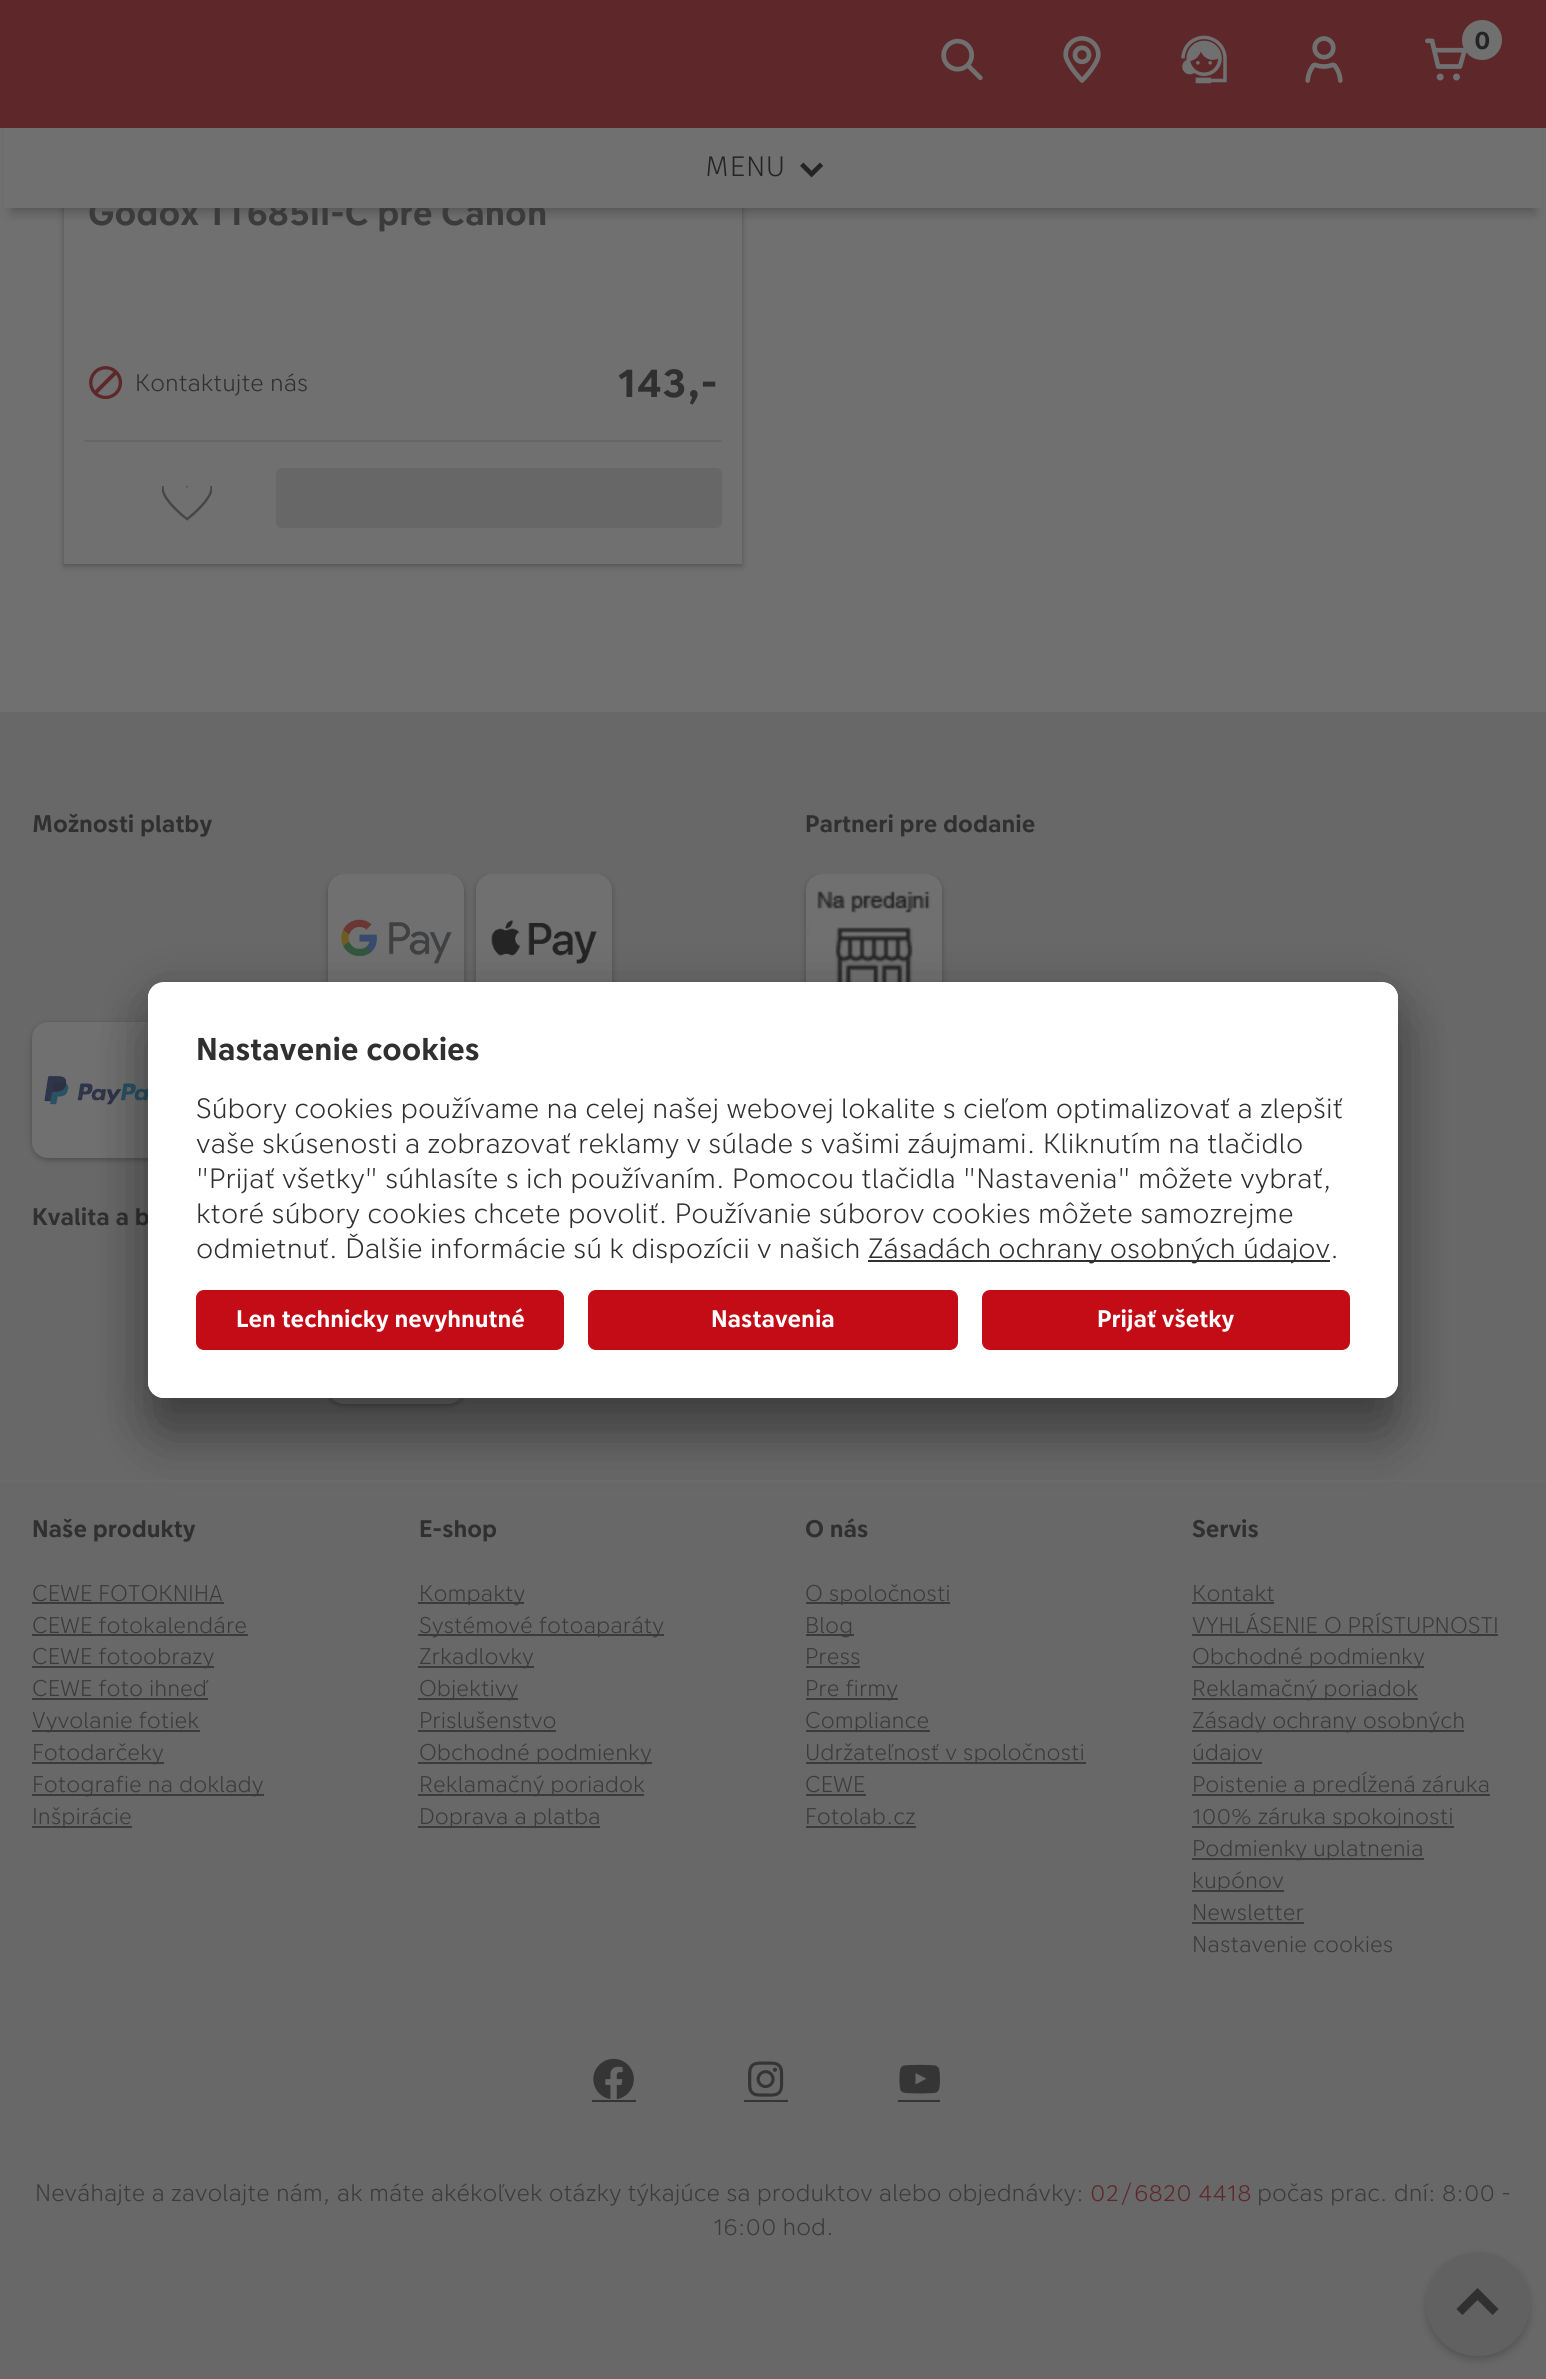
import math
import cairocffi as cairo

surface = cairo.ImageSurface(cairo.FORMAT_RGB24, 1546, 2379)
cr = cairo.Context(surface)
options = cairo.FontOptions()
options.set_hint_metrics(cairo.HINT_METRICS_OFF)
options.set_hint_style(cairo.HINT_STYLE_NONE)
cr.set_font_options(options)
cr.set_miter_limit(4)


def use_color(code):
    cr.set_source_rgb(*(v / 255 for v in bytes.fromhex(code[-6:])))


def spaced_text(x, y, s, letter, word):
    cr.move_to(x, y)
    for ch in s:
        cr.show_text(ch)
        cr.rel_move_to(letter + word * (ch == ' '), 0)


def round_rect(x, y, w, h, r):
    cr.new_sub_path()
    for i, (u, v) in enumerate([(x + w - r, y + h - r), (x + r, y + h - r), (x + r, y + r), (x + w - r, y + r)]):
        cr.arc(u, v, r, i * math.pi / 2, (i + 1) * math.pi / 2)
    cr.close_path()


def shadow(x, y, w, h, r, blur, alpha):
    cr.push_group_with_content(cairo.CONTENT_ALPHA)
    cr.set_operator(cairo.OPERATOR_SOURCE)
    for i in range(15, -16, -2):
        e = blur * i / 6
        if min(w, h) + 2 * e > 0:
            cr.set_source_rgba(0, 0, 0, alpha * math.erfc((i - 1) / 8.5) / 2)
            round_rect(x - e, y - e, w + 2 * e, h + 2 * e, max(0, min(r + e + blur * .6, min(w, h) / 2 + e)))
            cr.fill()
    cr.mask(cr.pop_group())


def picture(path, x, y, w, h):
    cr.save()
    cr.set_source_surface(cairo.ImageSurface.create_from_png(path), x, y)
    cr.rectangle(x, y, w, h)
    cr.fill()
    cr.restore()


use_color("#707070")
cr.paint()
use_color("#545454")
shadow(12, 28, 1522, 184, 0, 6, 1)
cr.save()
cr.set_fill_rule(cairo.FILL_RULE_EVEN_ODD)
cr.new_path()
cr.move_to(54, 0)
cr.line_to(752, 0)
cr.line_to(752, 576)
cr.line_to(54, 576)
cr.close_path()
cr.move_to(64, -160)
cr.line_to(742, -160)
cr.line_to(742, 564)
cr.line_to(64, 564)
cr.close_path()
cr.clip()
use_color("#242424")
shadow(64, -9, 678, 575, 0, 3, 0.4)
cr.restore()
use_color("#5e272a")
cr.rectangle(0, 0, 1546, 128)
cr.fill()
picture("img1.png", 941, 38, 42, 43)
picture("img2.png", 1063, 36, 38, 47)
picture("img3.png", 1181, 35, 46, 49)
picture("img4.png", 1305, 36, 38, 47)
picture("img5.png", 1425, 38, 42, 43)
use_color("#707070")
cr.arc(1482, 40, 20, 0, 2 * math.pi)
cr.fill()
cr.select_font_face("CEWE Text", cairo.FONT_SLANT_NORMAL, cairo.FONT_WEIGHT_BOLD)
cr.set_font_size(26)
use_color("#242424")
cr.move_to(1474, 49)
cr.show_text("0")
cr.set_font_size(35.25)
use_color("#3b3b3b")
cr.move_to(88, 225)
cr.show_text("Godox TT685II-C pre Canon")
use_color("#707070")
cr.rectangle(4, 128, 1538, 80)
cr.fill()
cr.select_font_face("CEWE Text Light")
cr.set_font_size(28)
use_color("#242424")
spaced_text(705, 176, "MENU", 1, 0)
picture("img6.png", 800, 162, 24, 16)
picture("img7.png", 89, 366, 34, 34)
cr.set_font_size(24)
use_color("#303030")
cr.move_to(135, 391)
cr.show_text("Kontaktujte nás")
cr.select_font_face("CEWE Text", cairo.FONT_SLANT_NORMAL, cairo.FONT_WEIGHT_BOLD)
cr.set_font_size(42)
cr.move_to(617, 397)
cr.show_text("143,-")
use_color("#676767")
cr.rectangle(84, 440, 638, 2)
cr.fill()
picture("img8.png", 162, 486, 50, 35)
round_rect(276, 468, 446, 60, 6)
cr.fill()
use_color("#686868")
cr.rectangle(0, 712, 1546, 1667)
cr.fill()
cr.set_font_size(24)
use_color("#303030")
cr.move_to(32, 832)
cr.show_text("Možnosti platby")
cr.save()
cr.rectangle(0, 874, 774, 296)
cr.clip()
use_color("#242424")
shadow(328, 876, 136, 136, 16, 3, 0.4)
cr.restore()
picture("img9.png", 328, 874, 136, 108)
cr.save()
cr.rectangle(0, 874, 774, 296)
cr.clip()
use_color("#242424")
shadow(476, 876, 136, 136, 16, 3, 0.4)
cr.restore()
picture("img10.png", 476, 874, 136, 108)
use_color("#242424")
shadow(32, 1024, 136, 136, 16, 3, 0.4)
picture("img11.png", 32, 1022, 116, 136)
use_color("#303030")
cr.move_to(805, 832)
cr.show_text("Partneri pre dodanie")
cr.save()
cr.rectangle(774, 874, 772, 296)
cr.clip()
use_color("#242424")
shadow(806, 876, 136, 136, 16, 3, 0.4)
cr.restore()
picture("img12.png", 806, 874, 136, 108)
cr.move_to(32, 1225)
cr.show_text("Kvalita a b")
use_color("#242424")
shadow(328, 1270, 136, 136, 16, 3, 0.4)
picture("img13.png", 331, 1398, 130, 6)
use_color("#6b6b6b")
cr.rectangle(0, 1480, 1546, 2)
cr.fill()
use_color("#303030")
cr.move_to(32, 1537)
cr.show_text("Naše produkty")
cr.select_font_face("CEWE Text Light")
cr.set_font_size(22.75)
use_color("#3b3b3b")
cr.move_to(32, 1601)
cr.show_text("CEWE FOTOKNIHA")
cr.rectangle(32, 1602, 192, 2)
cr.fill()
cr.move_to(32, 1633)
cr.show_text("CEWE fotokalendáre")
cr.rectangle(32, 1634, 216, 2)
cr.fill()
cr.rectangle(32, 1666, 182, 2)
cr.fill()
cr.move_to(32, 1664)
cr.show_text("CEWE fotoobrazy")
cr.move_to(32, 1696)
cr.show_text("CEWE foto ihneď")
cr.rectangle(32, 1698, 176, 2)
cr.fill()
cr.rectangle(32, 1730, 168, 2)
cr.fill()
cr.move_to(32, 1728)
cr.show_text("Vyvolanie fotiek")
cr.rectangle(32, 1762, 132, 2)
cr.fill()
cr.move_to(32, 1760)
cr.show_text("Fotodarčeky")
cr.rectangle(32, 1794, 232, 2)
cr.fill()
cr.move_to(32, 1792)
cr.show_text("Fotografie na doklady")
cr.rectangle(32, 1826, 100, 2)
cr.fill()
cr.move_to(32, 1824)
cr.show_text("Inšpirácie")
cr.select_font_face("CEWE Text", cairo.FONT_SLANT_NORMAL, cairo.FONT_WEIGHT_BOLD)
cr.set_font_size(24)
use_color("#303030")
cr.move_to(419, 1537)
cr.show_text("E-shop")
use_color("#3b3b3b")
cr.rectangle(418, 1602, 106, 2)
cr.fill()
cr.select_font_face("CEWE Text Light")
cr.set_font_size(22.75)
cr.move_to(419, 1601)
cr.show_text("Kompakty")
cr.rectangle(418, 1634, 246, 2)
cr.fill()
cr.move_to(419, 1633)
cr.show_text("Systémové fotoaparáty")
cr.rectangle(418, 1666, 116, 2)
cr.fill()
cr.move_to(419, 1664)
cr.show_text("Zrkadlovky")
cr.rectangle(418, 1698, 100, 2)
cr.fill()
cr.move_to(419, 1696)
cr.show_text("Objektivy")
cr.move_to(419, 1728)
cr.show_text("Prislušenstvo")
cr.rectangle(418, 1730, 138, 2)
cr.fill()
cr.rectangle(418, 1762, 234, 2)
cr.fill()
cr.move_to(419, 1760)
cr.show_text("Obchodné podmienky")
cr.rectangle(418, 1794, 226, 2)
cr.fill()
cr.move_to(419, 1792)
cr.show_text("Reklamačný poriadok")
cr.rectangle(418, 1826, 182, 2)
cr.fill()
cr.move_to(419, 1824)
cr.show_text("Doprava a platba")
cr.select_font_face("CEWE Text", cairo.FONT_SLANT_NORMAL, cairo.FONT_WEIGHT_BOLD)
cr.set_font_size(24)
use_color("#303030")
cr.move_to(805, 1537)
cr.show_text("O nás")
use_color("#3b3b3b")
cr.rectangle(806, 1602, 144, 2)
cr.fill()
cr.select_font_face("CEWE Text Light")
cr.set_font_size(22.75)
cr.move_to(805, 1601)
cr.show_text("O spoločnosti")
cr.rectangle(806, 1634, 48, 2)
cr.fill()
cr.move_to(805, 1633)
cr.show_text("Blog")
cr.move_to(805, 1664)
cr.show_text("Press")
cr.rectangle(806, 1666, 54, 2)
cr.fill()
cr.rectangle(806, 1698, 92, 2)
cr.fill()
cr.move_to(805, 1696)
cr.show_text("Pre firmy")
cr.rectangle(806, 1730, 124, 2)
cr.fill()
cr.move_to(805, 1728)
cr.show_text("Compliance")
cr.rectangle(806, 1762, 280, 2)
cr.fill()
cr.move_to(805, 1760)
cr.show_text("Udržateľnosť v spoločnosti")
cr.move_to(805, 1792)
cr.show_text("CEWE")
cr.rectangle(806, 1794, 60, 2)
cr.fill()
cr.move_to(805, 1824)
cr.show_text("Fotolab.cz")
cr.rectangle(806, 1826, 110, 2)
cr.fill()
cr.select_font_face("CEWE Text", cairo.FONT_SLANT_NORMAL, cairo.FONT_WEIGHT_BOLD)
cr.set_font_size(24)
use_color("#303030")
cr.move_to(1192, 1537)
cr.show_text("Servis")
cr.select_font_face("CEWE Text Light")
cr.set_font_size(22.75)
use_color("#3b3b3b")
cr.move_to(1192, 1601)
cr.show_text("Kontakt")
cr.rectangle(1192, 1602, 82, 2)
cr.fill()
cr.move_to(1192, 1633)
cr.show_text("VYHLÁSENIE O PRÍSTUPNOSTI")
cr.rectangle(1192, 1634, 306, 2)
cr.fill()
cr.rectangle(1192, 1666, 232, 2)
cr.fill()
cr.move_to(1192, 1664)
cr.show_text("Obchodné podmienky")
cr.rectangle(1192, 1698, 226, 2)
cr.fill()
cr.move_to(1192, 1696)
cr.show_text("Reklamačný poriadok")
cr.rectangle(1192, 1730, 272, 2)
cr.fill()
cr.move_to(1192, 1728)
cr.show_text("Zásady ochrany osobných")
cr.rectangle(1192, 1762, 70, 2)
cr.fill()
cr.move_to(1192, 1760)
cr.show_text("údajov")
cr.rectangle(1192, 1794, 298, 2)
cr.fill()
cr.move_to(1192, 1792)
cr.show_text("Poistenie a predĺžená záruka")
cr.rectangle(1192, 1826, 262, 2)
cr.fill()
cr.move_to(1192, 1824)
cr.show_text("100% záruka spokojnosti")
cr.rectangle(1192, 1858, 232, 2)
cr.fill()
cr.move_to(1192, 1856)
cr.show_text("Podmienky uplatnenia")
cr.rectangle(1192, 1890, 92, 2)
cr.fill()
cr.move_to(1192, 1888)
cr.show_text("kupónov")
cr.move_to(1192, 1920)
cr.show_text("Newsletter")
cr.rectangle(1192, 1922, 112, 2)
cr.fill()
cr.move_to(1192, 1952)
cr.show_text("Nastavenie cookies")
picture("img14.png", 593, 2058, 41, 42)
use_color("#353535")
cr.rectangle(592, 2100, 44, 2)
cr.fill()
picture("img15.png", 748, 2061, 36, 36)
cr.rectangle(744, 2100, 44, 2)
cr.fill()
picture("img16.png", 899, 2064, 41, 30)
cr.rectangle(898, 2100, 42, 2)
cr.fill()
cr.set_font_size(24)
use_color("#3b3b3b")
cr.move_to(35, 2201)
cr.show_text("Neváhajte a zavolajte nám, ak máte akékoľvek otázky týkajúce sa produktov alebo objednávky:")
use_color("#5e272a")
cr.move_to(1090, 2201)
cr.show_text("02/6820 4418")
use_color("#3b3b3b")
cr.move_to(1257, 2201)
cr.show_text("počas prac. dní: 8:00 -")
cr.move_to(713, 2235)
cr.show_text("16:00 hod.")
use_color("#242424")
shadow(1426, 2256, 104, 104, 52, 4, 0.3)
use_color("#616161")
cr.arc(1478, 2304, 52, 0, 2 * math.pi)
cr.fill()
picture("img17.png", 1456, 2288, 43, 27)
use_color("#000000")
shadow(148, 1022, 1250, 416, 16, 28, 0.3)
shadow(148, 992, 1250, 416, 16, 26, 0.22)
use_color("#ffffff")
round_rect(148, 982, 1250, 416, 16)
cr.fill()
cr.save()
round_rect(148, 982, 1250, 416, 16)
cr.clip()
cr.new_path()
cr.move_to(164, 982)
cr.line_to(1382, 982)
cr.curve_to(1391, 982, 1398, 989, 1398, 998)
cr.line_to(1398, 1274)
cr.line_to(148, 1274)
cr.line_to(148, 998)
cr.curve_to(148, 989, 155, 982, 164, 982)
cr.close_path()
cr.clip()
cr.rectangle(148, 984, 1250, 290)
cr.fill()
cr.restore()
cr.select_font_face("CEWE Text", cairo.FONT_SLANT_NORMAL, cairo.FONT_WEIGHT_BOLD)
cr.set_font_size(31.5)
use_color("#303030")
cr.move_to(196, 1060)
cr.show_text("Nastavenie cookies")
cr.select_font_face("CEWE Text Light")
cr.set_font_size(28)
cr.move_to(196, 1118)
cr.show_text("Súbory cookies používame na celej našej webovej lokalite s cieľom optimalizovať a zlepšiť")
cr.move_to(196, 1153)
cr.show_text("vaše skúsenosti a zobrazovať reklamy v súlade s vašimi záujmami. Kliknutím na tlačidlo")
cr.move_to(196, 1188)
cr.show_text("\"Prijať všetky\" súhlasíte s ich používaním. Pomocou tlačidla \"Nastavenia\" môžete vybrať,")
cr.move_to(196, 1223)
cr.show_text("ktoré súbory cookies chcete povoliť. Používanie súborov cookies môžete samozrejme")
cr.move_to(196, 1258)
cr.show_text("odmietnuť. Ďalšie informácie sú k dispozícii v našich")
cr.rectangle(868, 1260, 462, 2)
cr.fill()
cr.move_to(868, 1258)
cr.show_text("Zásadách ochrany osobných údajov.")
use_color("#ffffff")
cr.new_path()
cr.move_to(148, 1274)
cr.line_to(1398, 1274)
cr.line_to(1398, 1382)
cr.curve_to(1398, 1391, 1391, 1398, 1382, 1398)
cr.line_to(164, 1398)
cr.curve_to(155, 1398, 148, 1391, 148, 1382)
cr.close_path()
cr.fill()
use_color("#c30c15")
round_rect(196, 1290, 368, 60, 8)
cr.fill()
cr.select_font_face("CEWE Text", cairo.FONT_SLANT_NORMAL, cairo.FONT_WEIGHT_BOLD)
cr.set_font_size(24)
use_color("#ffffff")
cr.move_to(236, 1327)
cr.show_text("Len technicky nevyhnutné")
use_color("#c30c15")
round_rect(588, 1290, 370, 60, 8)
cr.fill()
use_color("#ffffff")
cr.move_to(711, 1327)
cr.show_text("Nastavenia")
use_color("#c30c15")
round_rect(982, 1290, 368, 60, 8)
cr.fill()
use_color("#ffffff")
cr.move_to(1097, 1327)
cr.show_text("Prijať všetky")
surface.write_to_png("result.png")
